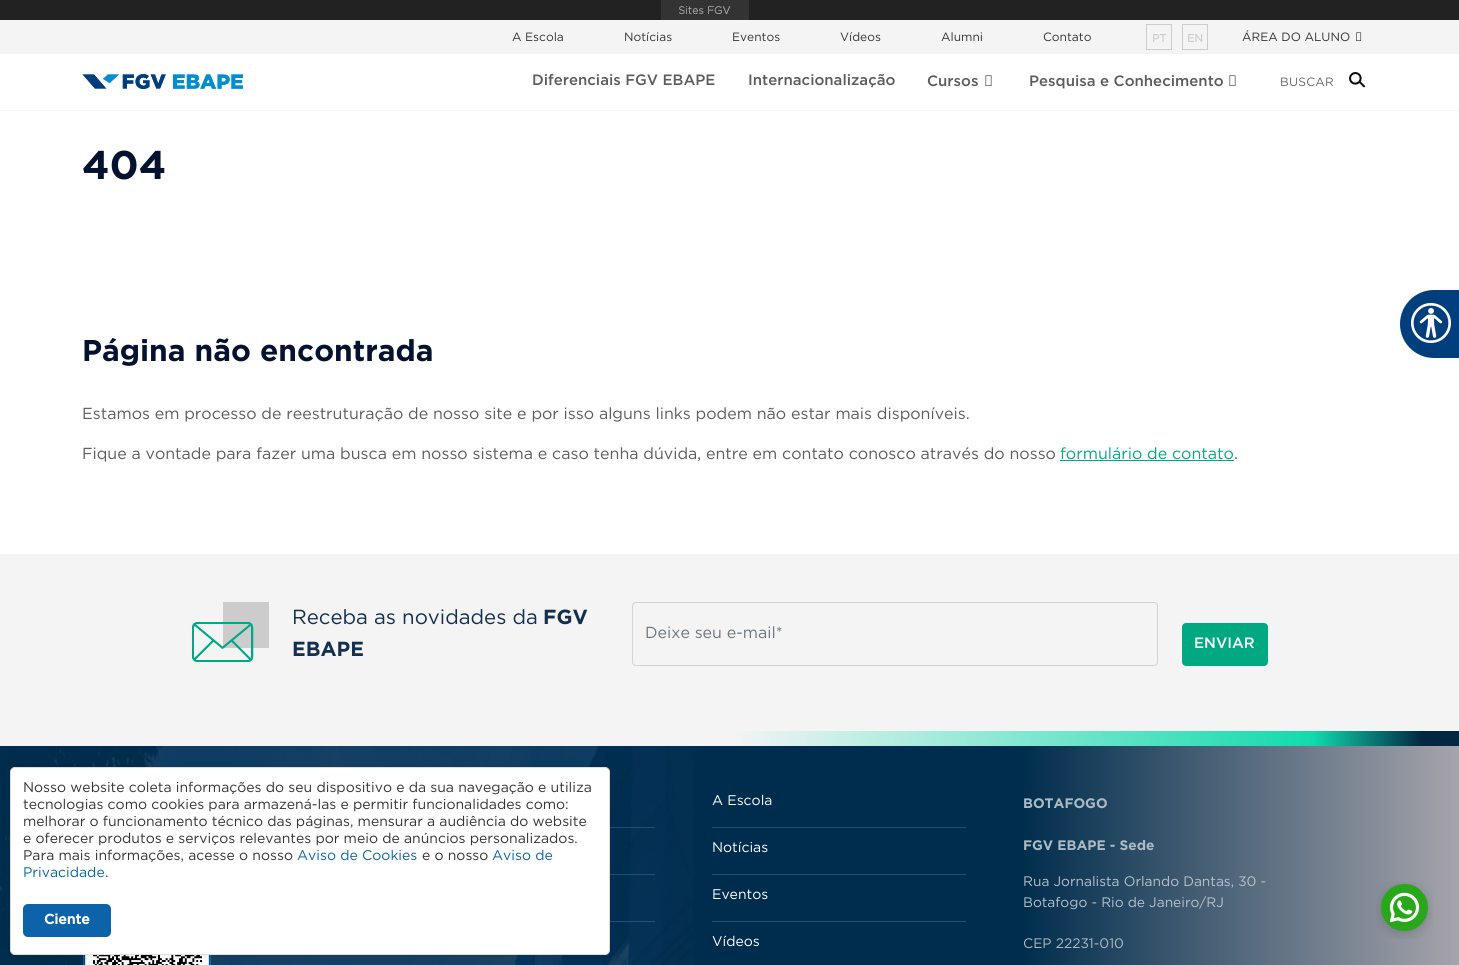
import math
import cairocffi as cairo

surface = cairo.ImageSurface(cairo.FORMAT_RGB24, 1459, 965)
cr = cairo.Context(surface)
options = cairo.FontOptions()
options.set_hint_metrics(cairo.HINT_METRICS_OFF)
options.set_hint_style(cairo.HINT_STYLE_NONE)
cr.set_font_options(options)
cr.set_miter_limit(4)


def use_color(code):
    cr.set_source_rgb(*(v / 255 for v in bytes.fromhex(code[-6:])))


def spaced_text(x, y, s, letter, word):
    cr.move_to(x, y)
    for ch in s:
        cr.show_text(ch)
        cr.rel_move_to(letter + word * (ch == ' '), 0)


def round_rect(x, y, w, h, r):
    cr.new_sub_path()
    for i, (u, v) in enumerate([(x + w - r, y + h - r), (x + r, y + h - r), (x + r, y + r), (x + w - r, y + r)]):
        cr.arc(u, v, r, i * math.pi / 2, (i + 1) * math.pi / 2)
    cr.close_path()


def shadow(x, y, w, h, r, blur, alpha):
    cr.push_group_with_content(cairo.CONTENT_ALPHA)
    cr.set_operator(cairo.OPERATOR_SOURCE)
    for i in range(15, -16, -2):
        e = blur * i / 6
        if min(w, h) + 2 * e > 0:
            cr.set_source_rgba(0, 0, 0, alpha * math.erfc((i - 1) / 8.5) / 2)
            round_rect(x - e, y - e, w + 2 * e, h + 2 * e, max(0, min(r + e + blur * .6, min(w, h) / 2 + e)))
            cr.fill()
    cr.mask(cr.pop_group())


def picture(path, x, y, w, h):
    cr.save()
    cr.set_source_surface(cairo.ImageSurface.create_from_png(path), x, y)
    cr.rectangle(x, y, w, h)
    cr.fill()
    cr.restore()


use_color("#ffffff")
cr.paint()
use_color("#222222")
cr.rectangle(0, 0, 1459, 20)
cr.fill()
picture("img1.png", 661, 0, 88, 20)
use_color("#f4f4f4")
cr.rectangle(0, 20, 1459, 34)
cr.fill()
cr.select_font_face("Gotham")
cr.set_font_size(12)
use_color("#333333")
cr.move_to(512, 41)
cr.show_text("A Escola")
cr.move_to(624, 41)
cr.show_text("Notícias")
cr.move_to(732, 41)
cr.show_text("Eventos")
cr.move_to(840, 41)
cr.show_text("Vídeos")
cr.move_to(941, 41)
cr.show_text("Alumni")
cr.move_to(1043, 41)
cr.show_text("Contato")
cr.rectangle(1146.5, 24.5, 25, 25)
use_color("#cccccc")
cr.set_line_width(1)
cr.stroke()
cr.select_font_face("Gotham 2", cairo.FONT_SLANT_NORMAL, cairo.FONT_WEIGHT_BOLD)
cr.set_font_size(11)
cr.move_to(1152, 42)
cr.show_text("PT")
cr.rectangle(1182.5, 24.5, 25, 25)
cr.stroke()
cr.move_to(1187, 42)
cr.show_text("EN")
cr.select_font_face("Gotham")
cr.set_font_size(12)
use_color("#333333")
cr.move_to(1242, 41)
cr.show_text("ÁREA DO ALUNO")
picture("img2.png", 1356, 32, 6, 9)
use_color("#f3f3f3")
cr.rectangle(0, 110, 1459, 1)
cr.fill()
picture("img3.png", 82, 74, 161, 15)
cr.select_font_face("Gotham Medium")
cr.set_font_size(15)
use_color("#5c5b5f")
cr.move_to(532, 85)
cr.show_text("Diferenciais FGV EBAPE")
cr.move_to(748, 85)
cr.show_text("Internacionalização")
cr.move_to(927, 86)
cr.show_text("Cursos")
picture("img4.png", 985, 75, 7, 11)
cr.move_to(1029, 86)
cr.show_text("Pesquisa e Conhecimento")
picture("img4.png", 1229, 75, 7, 11)
cr.select_font_face("Gotham")
cr.set_font_size(12)
use_color("#666666")
spaced_text(1280, 86, "BUSCAR", 0.25, 0)
picture("img5.png", 1349, 72, 17, 16)
cr.select_font_face("Gotham", cairo.FONT_SLANT_NORMAL, cairo.FONT_WEIGHT_BOLD)
cr.set_font_size(40)
use_color("#041230")
cr.move_to(82, 179)
cr.show_text("404")
cr.set_font_size(30)
cr.move_to(82, 361)
cr.show_text("Página não encontrada")
cr.select_font_face("Gotham")
cr.set_font_size(16)
use_color("#5c5b5f")
cr.move_to(82, 419)
cr.show_text("Estamos em processo de reestruturação de nosso site e por isso alguns links podem não estar mais disponíveis.")
cr.move_to(82, 459)
cr.show_text("Fique a vontade para fazer uma busca em nosso sistema e caso tenha dúvida, entre em contato conosco através do nosso")
use_color("#00a981")
cr.move_to(1060, 459)
cr.show_text("formulário de contato")
cr.rectangle(1060, 460, 174, 1)
cr.fill()
use_color("#5c5b5f")
cr.move_to(1234, 459)
cr.show_text(".")
use_color("#f4f4f4")
cr.rectangle(0, 554, 1459, 192)
cr.fill()
use_color("#cccccc")
cr.rectangle(223, 602, 46, 46)
cr.fill()
cr.set_font_size(20.4)
use_color("#152f4e")
cr.move_to(292, 624)
cr.show_text("Receba as novidades da")
cr.select_font_face("Gotham", cairo.FONT_SLANT_NORMAL, cairo.FONT_WEIGHT_BOLD)
cr.move_to(543, 624)
cr.show_text("FGV")
picture("img6.png", 192, 622, 62, 40)
cr.move_to(292, 656)
cr.show_text("EBAPE")
round_rect(632.5, 602.5, 525, 63, 3.5)
use_color("#ced4da")
cr.stroke()
cr.select_font_face("Gotham")
cr.set_font_size(16)
use_color("#6c757d")
cr.move_to(645, 638)
cr.show_text("Deixe seu e-mail*")
use_color("#00a981")
round_rect(1183, 624, 84, 41, 3)
cr.fill_preserve()
cr.set_line_width(2)
cr.stroke()
cr.select_font_face("Gotham Medium")
cr.set_font_size(15)
use_color("#ffffff")
cr.move_to(1194, 648)
cr.show_text("ENVIAR")
gradient = cairo.LinearGradient(730, 739, 1459, 739)
gradient.add_color_stop_rgba(0, 0.957, 0.957, 0.957, 1)
gradient.add_color_stop_rgba(0.8, 0.071, 0.855, 0.678, 1)
gradient.add_color_stop_rgba(0.95, 0.004, 0.153, 0.263, 1)
cr.set_source(gradient)
cr.rectangle(736, 731, 723, 15)
cr.fill()
gradient = cairo.LinearGradient(0, 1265, 1459, 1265)
gradient.add_color_stop_rgba(0, 0, 0.176, 0.302, 1)
gradient.add_color_stop_rgba(0.7, 0, 0.176, 0.302, 1)
gradient.add_color_stop_rgba(1, 0.651, 0.643, 0.671, 1)
cr.set_source(gradient)
cr.rectangle(692, 746, 767, 219)
cr.fill()
picture("img7.png", 0, 746, 693, 219)
cr.set_source_rgba(1, 1, 1, 0.15)
cr.rectangle(610, 827, 45, 1)
cr.fill()
cr.rectangle(610, 874, 45, 1)
cr.fill()
cr.rectangle(610, 921, 45, 1)
cr.fill()
use_color("#264d68")
cr.rectangle(712, 827, 254, 1)
cr.fill()
cr.select_font_face("Gotham")
cr.set_font_size(14)
use_color("#ffffff")
cr.move_to(712, 805)
cr.show_text("A Escola")
use_color("#264d68")
cr.rectangle(712, 874, 254, 1)
cr.fill()
use_color("#ffffff")
cr.move_to(712, 852)
cr.show_text("Notícias")
use_color("#264d68")
cr.rectangle(712, 921, 254, 1)
cr.fill()
use_color("#ffffff")
cr.move_to(712, 899)
cr.show_text("Eventos")
cr.move_to(712, 946)
cr.show_text("Vídeos")
cr.select_font_face("Gotham", cairo.FONT_SLANT_NORMAL, cairo.FONT_WEIGHT_BOLD)
cr.set_font_size(13.75)
use_color("#acbac4")
cr.move_to(1023, 808)
cr.show_text("BOTAFOGO")
cr.move_to(1023, 850)
cr.show_text("FGV EBAPE - Sede")
cr.select_font_face("Gotham")
use_color("#b6c1ca")
cr.move_to(1023, 886)
cr.show_text("Rua Jornalista Orlando Dantas, 30 -")
cr.move_to(1023, 907)
cr.show_text("Botafogo - Rio de Janeiro/RJ")
use_color("#acbac4")
cr.move_to(1023, 948)
cr.show_text("CEP 22231-010")
picture("img8.png", 1376, 882, 57, 57)
picture("img9.png", 83, 955, 128, 10)
use_color("#003e7e")
cr.new_path()
cr.move_to(1434, 291.5)
cr.line_to(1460.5, 291.5)
cr.line_to(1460.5, 356.5)
cr.line_to(1434, 356.5)
cr.curve_to(1416, 356.5, 1401.5, 342, 1401.5, 324)
cr.curve_to(1401.5, 306, 1416, 291.5, 1434, 291.5)
cr.close_path()
cr.fill_preserve()
cr.set_line_width(3)
cr.stroke()
picture("img10.png", 1411, 303, 40, 40)
use_color("#000000")
shadow(10, 767, 600, 188, 5, 4, 0.1)
use_color("#ffffff")
round_rect(10.5, 767.5, 599, 187, 4.5)
cr.fill_preserve()
use_color("#dddddd")
cr.set_line_width(1)
cr.stroke()
cr.set_font_size(14)
use_color("#333333")
cr.move_to(23, 792)
cr.show_text("Nosso website coleta informações do seu dispositivo e da sua navegação e utiliza")
cr.move_to(23, 809)
cr.show_text("tecnologias como cookies para armazená-las e permitir funcionalidades como:")
cr.move_to(23, 826)
cr.show_text("melhorar o funcionamento técnico das páginas, mensurar a audiência do website")
cr.move_to(23, 843)
cr.show_text("e oferecer produtos e serviços relevantes por meio de anúncios personalizados.")
cr.move_to(23, 860)
cr.show_text("Para mais informações, acesse o nosso")
use_color("#0c63aa")
cr.move_to(297, 860)
cr.show_text("Aviso de Cookies")
use_color("#333333")
cr.move_to(422, 860)
cr.show_text("e o nosso")
use_color("#0c63aa")
cr.move_to(492, 860)
cr.show_text("Aviso de")
cr.move_to(23, 877)
cr.show_text("Privacidade")
use_color("#333333")
cr.move_to(105, 877)
cr.show_text(".")
use_color("#0c63aa")
round_rect(23, 904, 88, 33, 5)
cr.fill()
cr.select_font_face("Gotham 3", cairo.FONT_SLANT_NORMAL, cairo.FONT_WEIGHT_BOLD)
use_color("#ffffff")
cr.move_to(44, 924)
cr.show_text("Ciente")
surface.write_to_png("result.png")
